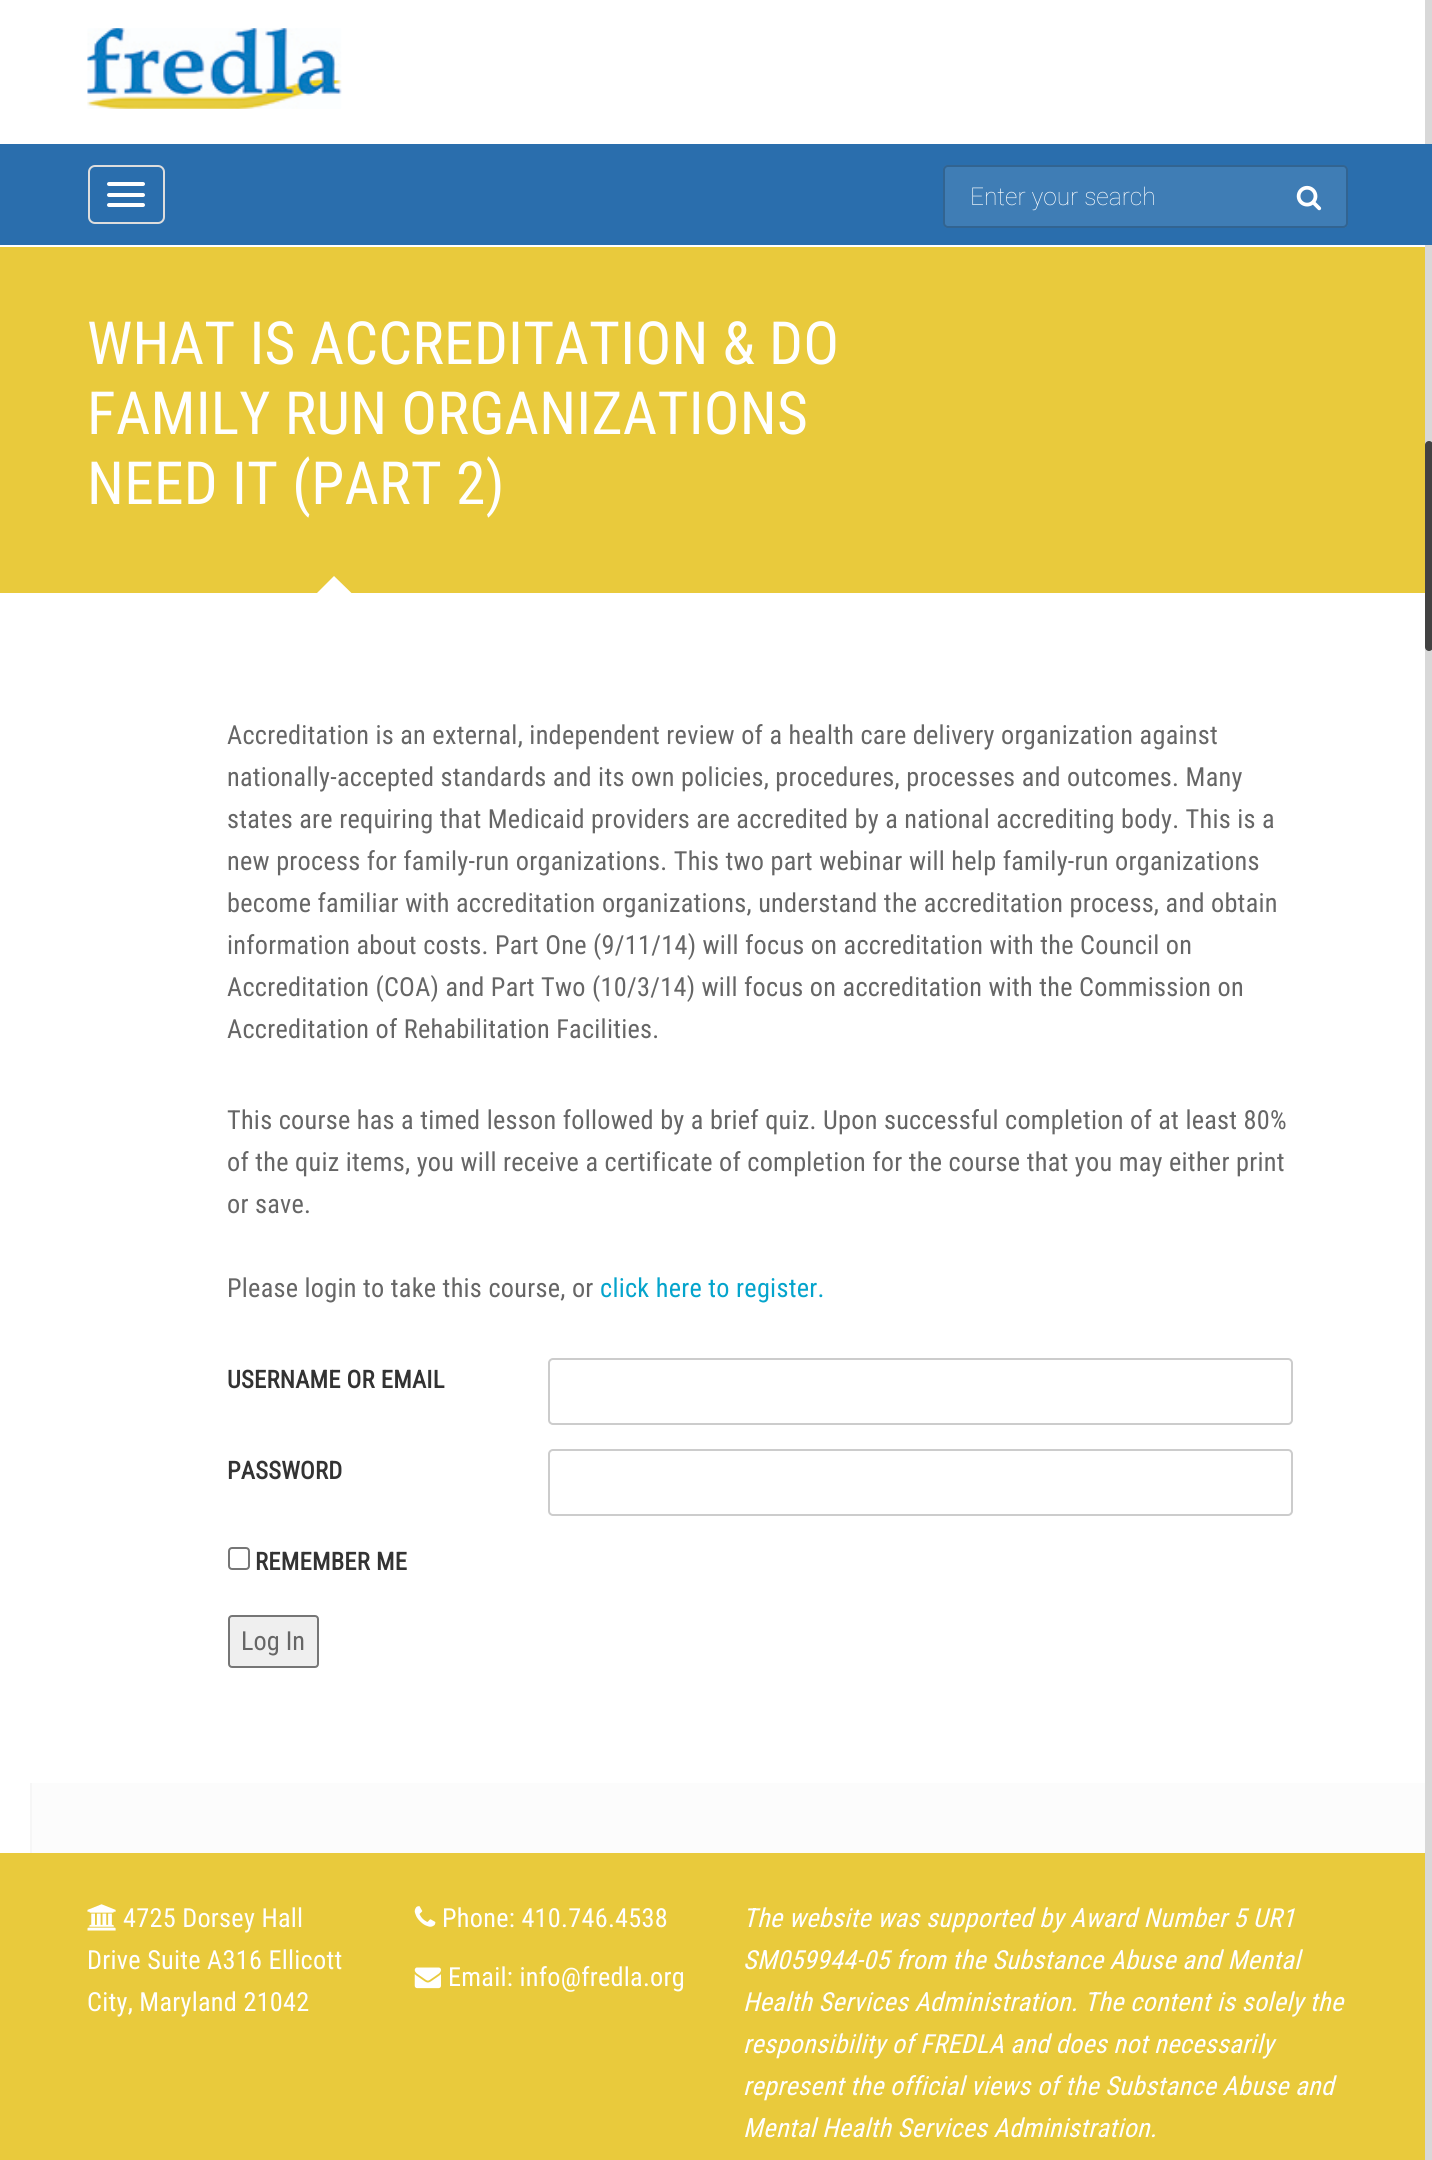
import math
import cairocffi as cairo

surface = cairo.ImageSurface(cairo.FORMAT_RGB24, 1432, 2160)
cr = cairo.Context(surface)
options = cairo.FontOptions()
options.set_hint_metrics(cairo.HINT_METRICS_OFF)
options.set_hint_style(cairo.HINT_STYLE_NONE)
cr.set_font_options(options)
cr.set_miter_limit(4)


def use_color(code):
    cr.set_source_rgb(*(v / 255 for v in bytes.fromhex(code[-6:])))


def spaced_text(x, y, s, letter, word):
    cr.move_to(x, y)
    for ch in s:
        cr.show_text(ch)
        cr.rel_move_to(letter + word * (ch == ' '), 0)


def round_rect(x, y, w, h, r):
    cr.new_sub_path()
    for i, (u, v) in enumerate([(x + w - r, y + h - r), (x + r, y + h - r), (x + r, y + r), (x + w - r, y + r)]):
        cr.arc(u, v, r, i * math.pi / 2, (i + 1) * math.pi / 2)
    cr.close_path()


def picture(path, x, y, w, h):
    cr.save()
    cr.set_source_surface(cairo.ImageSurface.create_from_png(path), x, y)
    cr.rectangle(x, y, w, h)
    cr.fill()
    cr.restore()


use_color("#ffffff")
cr.paint()
picture("img1.png", 87, 28, 255, 81)
use_color("#d8d8d8")
cr.rectangle(1425, 0, 7, 2160)
cr.fill()
use_color("#2a6ead")
cr.rectangle(0, 144, 1432, 101)
cr.fill()
round_rect(89, 166, 75, 57, 6)
use_color("#dddddd")
cr.stroke()
use_color("#ffffff")
round_rect(107, 182, 38, 4, 2)
cr.fill()
round_rect(107, 193, 38, 4, 2)
cr.fill()
round_rect(107, 203, 38, 4, 2)
cr.fill()
use_color("#3f7db5")
round_rect(943, 165, 405, 63, 5)
cr.fill()
round_rect(944, 166, 403, 61, 4)
cr.set_source_rgba(0, 0, 0, 0.2)
cr.stroke()
cr.select_font_face("Roboto Thin")
cr.set_font_size(24.5)
use_color("#ffffff")
cr.move_to(970, 205)
cr.show_text("Enter your search")
picture("img2.png", 1296, 185, 26, 26)
use_color("#e9ca3c")
cr.rectangle(0, 247, 1425, 346)
cr.fill()
cr.select_font_face("Roboto Condensed")
cr.set_font_size(59.5)
use_color("#ffffff")
spaced_text(87, 364, "WHAT IS ACCREDITATION & DO", 0.26, 0)
spaced_text(87, 434, "FAMILY RUN ORGANIZATIONS", 0.26, 0)
spaced_text(87, 504, "NEED IT (PART 2)", 0.26, 0)
cr.new_path()
cr.move_to(353.5, 595)
cr.line_to(315, 595)
cr.line_to(334, 576)
cr.close_path()
cr.fill()
cr.set_font_size(26.25)
use_color("#666666")
spaced_text(227, 744, "Accreditation is an external, independent review of a health care delivery organization against", 0.26, 0)
spaced_text(227, 786, "nationally-accepted standards and its own policies, procedures, processes and outcomes. Many", 0.26, 0)
spaced_text(227, 828, "states are requiring that Medicaid providers are accredited by a national accrediting body. This is a", 0.26, 0)
spaced_text(227, 870, "new process for family-run organizations. This two part webinar will help family-run organizations", 0.26, 0)
spaced_text(227, 912, "become familiar with accreditation organizations, understand the accreditation process, and obtain", 0.26, 0)
spaced_text(227, 954, "information about costs. Part One (9/11/14) will focus on accreditation with the Council on", 0.26, 0)
spaced_text(227, 996, "Accreditation (COA) and Part Two (10/3/14) will focus on accreditation with the Commission on", 0.26, 0)
spaced_text(227, 1038, "Accreditation of Rehabilitation Facilities.", 0.26, 0)
spaced_text(227, 1129, "This course has a timed lesson followed by a brief quiz. Upon successful completion of at least 80%", 0.26, 0)
spaced_text(227, 1171, "of the quiz items, you will receive a certificate of completion for the course that you may either print", 0.26, 0)
spaced_text(227, 1213, "or save.", 0.26, 0)
spaced_text(227, 1297, "Please login to take this course, or", 0.26, 0)
use_color("#04a4cc")
spaced_text(600, 1297, "click here to register.", 0.26, 0)
cr.select_font_face("Roboto Condensed", cairo.FONT_SLANT_NORMAL, cairo.FONT_WEIGHT_BOLD)
cr.set_font_size(24.5)
use_color("#333333")
spaced_text(227, 1388, "USERNAME OR EMAIL", 0.26, 0)
round_rect(549, 1359, 743, 65, 4)
use_color("#cccccc")
cr.stroke()
use_color("#333333")
spaced_text(227, 1479, "PASSWORD", 0.26, 0)
round_rect(549, 1450, 743, 65, 4)
use_color("#cccccc")
cr.stroke()
round_rect(229, 1548, 20, 21, 3)
use_color("#767676")
cr.stroke()
use_color("#333333")
spaced_text(255, 1570, "REMEMBER ME", 0.26, 0)
use_color("#efefef")
round_rect(229, 1616, 89, 51, 3)
cr.fill_preserve()
use_color("#767676")
cr.stroke()
cr.select_font_face("Roboto Condensed")
cr.set_font_size(26.25)
use_color("#666666")
cr.move_to(241, 1650)
cr.show_text("Log In")
use_color("#fcfcfc")
cr.rectangle(32, 1783, 1393, 70)
cr.fill()
use_color("#f6f6f6")
cr.rectangle(30, 1783, 2, 70)
cr.fill()
use_color("#e9ca3c")
cr.rectangle(0, 1853, 1425, 307)
cr.fill()
picture("img3.png", 87, 1904, 29, 27)
use_color("#ffffff")
spaced_text(123, 1927, "4725 Dorsey Hall", 0.26, 0)
spaced_text(87, 1969, "Drive Suite A316 Ellicott", 0.26, 0)
spaced_text(87, 2011, "City, Maryland 21042", 0.26, 0)
picture("img4.png", 414, 1906, 22, 21)
spaced_text(442, 1927, "Phone: 410.746.4538", 0.26, 0)
picture("img5.png", 414, 1967, 27, 22)
spaced_text(448, 1986, "Email: info@fredla.org", 0.26, 0)
cr.select_font_face("Roboto Condensed", cairo.FONT_SLANT_ITALIC)
spaced_text(743, 1927, "The website was supported by Award Number 5 UR1", 0.26, 0)
spaced_text(743, 1969, "SM059944-05 from the Substance Abuse and Mental", 0.26, 0)
spaced_text(743, 2011, "Health Services Administration. The content is solely the", 0.26, 0)
spaced_text(743, 2053, "responsibility of FREDLA and does not necessarily", 0.26, 0)
spaced_text(743, 2095, "represent the official views of the Substance Abuse and", 0.26, 0)
spaced_text(743, 2137, "Mental Health Services Administration.", 0.26, 0)
use_color("#424242")
round_rect(1425, 441, 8, 210, 4)
cr.fill()
surface.write_to_png("result.png")
